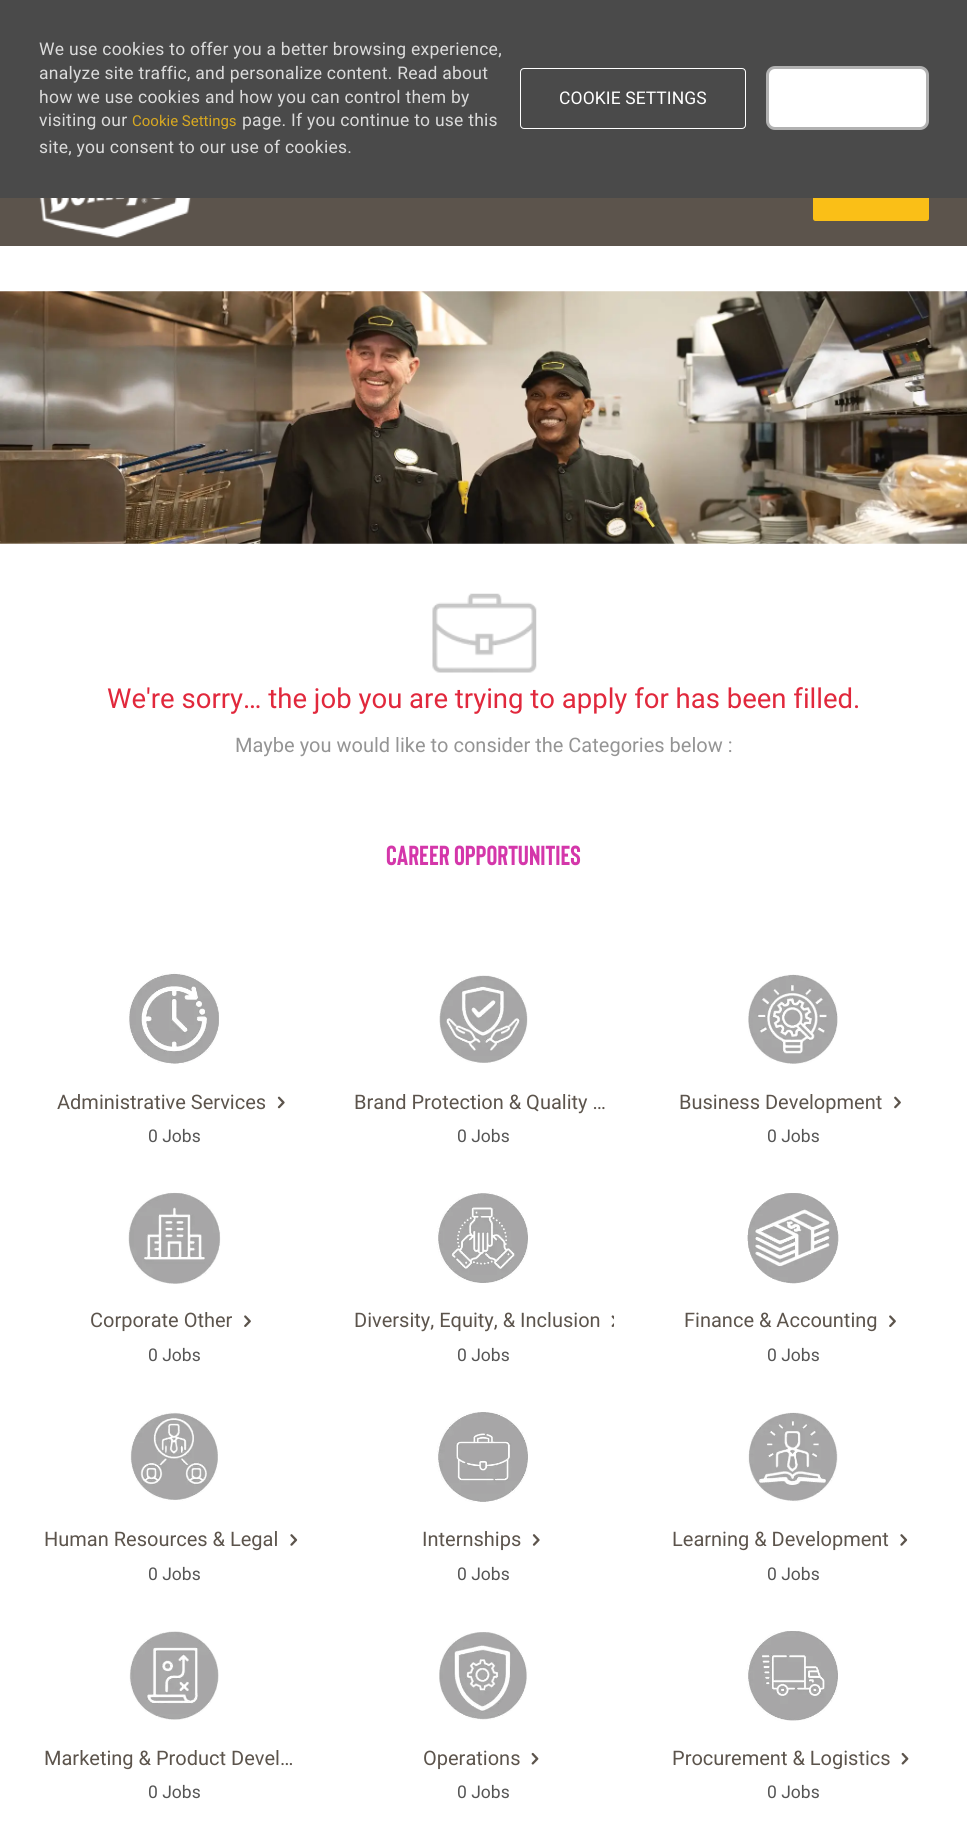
import math
import cairocffi as cairo

surface = cairo.ImageSurface(cairo.FORMAT_RGB24, 967, 1835)
cr = cairo.Context(surface)
options = cairo.FontOptions()
options.set_hint_metrics(cairo.HINT_METRICS_OFF)
options.set_hint_style(cairo.HINT_STYLE_NONE)
cr.set_font_options(options)
cr.set_miter_limit(4)


def use_color(code):
    cr.set_source_rgb(*(v / 255 for v in bytes.fromhex(code[-6:])))


def spaced_text(x, y, s, letter, word):
    cr.move_to(x, y)
    for ch in s:
        cr.show_text(ch)
        cr.rel_move_to(letter + word * (ch == ' '), 0)


def round_rect(x, y, w, h, r):
    cr.new_sub_path()
    for i, (u, v) in enumerate([(x + w - r, y + h - r), (x + r, y + h - r), (x + r, y + r), (x + w - r, y + r)]):
        cr.arc(u, v, r, i * math.pi / 2, (i + 1) * math.pi / 2)
    cr.close_path()


def picture(path, x, y, w, h):
    cr.save()
    cr.set_source_surface(cairo.ImageSurface.create_from_png(path), x, y)
    cr.rectangle(x, y, w, h)
    cr.fill()
    cr.restore()


use_color("#ffffff")
cr.paint()
use_color("#5c544c")
cr.rectangle(0, 198, 967, 48)
cr.fill()
use_color("#fabf17")
round_rect(813, 165, 116, 56, 2.5)
cr.fill()
use_color("#4a4a4a")
cr.rectangle(0, 0, 967, 198)
cr.fill()
cr.select_font_face("Heebo")
cr.set_font_size(17.5)
use_color("#dbdbdb")
spaced_text(39, 55, "We use cookies to offer you a better browsing experience,", 0.25, 0)
spaced_text(39, 79, "analyze site traffic, and personalize content. Read about", 0.25, 0)
spaced_text(39, 103, "how we use cookies and how you can control them by", 0.25, 0)
spaced_text(39, 126, "visiting our", 0.25, 0)
cr.set_font_size(15)
use_color("#d7a821")
cr.move_to(132, 126)
cr.show_text("Cookie Settings")
cr.set_font_size(17.5)
use_color("#dbdbdb")
spaced_text(242, 126, "page. If you continue to use this", 0.25, 0)
spaced_text(39, 153, "site, you consent to our use of cookies.", 0.25, 0)
round_rect(520.5, 68.5, 225, 60, 3.5)
use_color("#ffffff")
cr.set_line_width(1)
cr.stroke()
spaced_text(559, 104, "COOKIE SETTINGS", 0.1, 0)
round_rect(767.5, 67.5, 160, 61, 7.5)
cr.fill_preserve()
use_color("#b1b1b1")
cr.set_line_width(3)
cr.stroke()
picture("img1.png", 39, 198, 152, 40)
picture("img2.png", 0, 291, 967, 253)
picture("img3.png", 432, 593, 105, 80)
cr.set_font_size(27.5)
use_color("#e1283c")
cr.move_to(107, 708)
cr.show_text("We're sorry… the job you are trying to apply for has been filled.")
cr.set_font_size(20)
use_color("#949494")
cr.move_to(235, 752)
cr.show_text("Maybe you would like to consider the Categories below :")
cr.select_font_face("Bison", cairo.FONT_SLANT_NORMAL, cairo.FONT_WEIGHT_BOLD)
cr.set_font_size(27.5)
use_color("#d437aa")
cr.move_to(386, 865)
cr.show_text("CAREER OPPORTUNITIES")
picture("img4.png", 128, 972, 91, 92)
cr.select_font_face("Heebo")
cr.set_font_size(20)
use_color("#5c544c")
cr.move_to(57, 1109)
cr.show_text("Administrative Services")
picture("img5.png", 277, 1096, 8, 13)
cr.set_font_size(17.5)
use_color("#555555")
cr.move_to(148, 1142)
cr.show_text("0 Jobs")
picture("img6.png", 439, 975, 89, 88)
cr.set_font_size(20)
use_color("#5c544c")
cr.move_to(354, 1109)
cr.show_text("Brand Protection & Quality …")
cr.set_font_size(17.5)
use_color("#555555")
cr.move_to(457, 1142)
cr.show_text("0 Jobs")
picture("img7.png", 748, 974, 90, 90)
cr.set_font_size(20)
use_color("#5c544c")
cr.move_to(679, 1109)
cr.show_text("Business Development")
picture("img8.png", 894, 1096, 7, 13)
cr.set_font_size(17.5)
use_color("#555555")
cr.move_to(767, 1142)
cr.show_text("0 Jobs")
picture("img9.png", 128, 1192, 93, 92)
cr.set_font_size(20)
use_color("#5c544c")
cr.move_to(90, 1327)
cr.show_text("Corporate Other")
picture("img10.png", 244, 1315, 7, 12)
cr.set_font_size(17.5)
use_color("#555555")
cr.move_to(148, 1361)
cr.show_text("0 Jobs")
picture("img11.png", 437, 1192, 91, 91)
cr.set_font_size(20)
use_color("#5c544c")
cr.move_to(354, 1327)
cr.show_text("Diversity, Equity, & Inclusion")
picture("img12.png", 611, 1315, 3, 12)
cr.set_font_size(17.5)
use_color("#555555")
cr.move_to(457, 1361)
cr.show_text("0 Jobs")
picture("img13.png", 747, 1193, 92, 91)
cr.set_font_size(20)
use_color("#5c544c")
cr.move_to(684, 1327)
cr.show_text("Finance & Accounting")
picture("img10.png", 889, 1315, 7, 12)
cr.set_font_size(17.5)
use_color("#555555")
cr.move_to(767, 1361)
cr.show_text("0 Jobs")
picture("img14.png", 130, 1412, 88, 89)
cr.set_font_size(20)
use_color("#5c544c")
cr.move_to(44, 1546)
cr.show_text("Human Resources & Legal")
picture("img15.png", 290, 1534, 8, 12)
cr.set_font_size(17.5)
use_color("#555555")
cr.move_to(148, 1580)
cr.show_text("0 Jobs")
picture("img16.png", 437, 1412, 91, 90)
cr.set_font_size(20)
use_color("#5c544c")
cr.move_to(422, 1546)
cr.show_text("Internships")
picture("img17.png", 532, 1534, 8, 12)
cr.set_font_size(17.5)
use_color("#555555")
cr.move_to(457, 1580)
cr.show_text("0 Jobs")
picture("img18.png", 747, 1412, 91, 90)
cr.set_font_size(20)
use_color("#5c544c")
cr.move_to(672, 1546)
cr.show_text("Learning & Development")
picture("img15.png", 900, 1534, 8, 12)
cr.set_font_size(17.5)
use_color("#555555")
cr.move_to(767, 1580)
cr.show_text("0 Jobs")
picture("img19.png", 129, 1631, 90, 89)
cr.set_font_size(20)
use_color("#5c544c")
cr.move_to(44, 1765)
cr.show_text("Marketing & Product Devel…")
cr.set_font_size(17.5)
use_color("#555555")
cr.move_to(148, 1798)
cr.show_text("0 Jobs")
picture("img20.png", 439, 1632, 89, 88)
cr.set_font_size(20)
use_color("#5c544c")
cr.move_to(423, 1765)
cr.show_text("Operations")
picture("img21.png", 531, 1752, 8, 13)
cr.set_font_size(17.5)
use_color("#555555")
cr.move_to(457, 1798)
cr.show_text("0 Jobs")
picture("img22.png", 747, 1631, 91, 90)
cr.set_font_size(20)
use_color("#5c544c")
cr.move_to(672, 1765)
cr.show_text("Procurement & Logistics")
picture("img21.png", 901, 1752, 8, 13)
cr.set_font_size(17.5)
use_color("#555555")
cr.move_to(767, 1798)
cr.show_text("0 Jobs")
surface.write_to_png("result.png")
